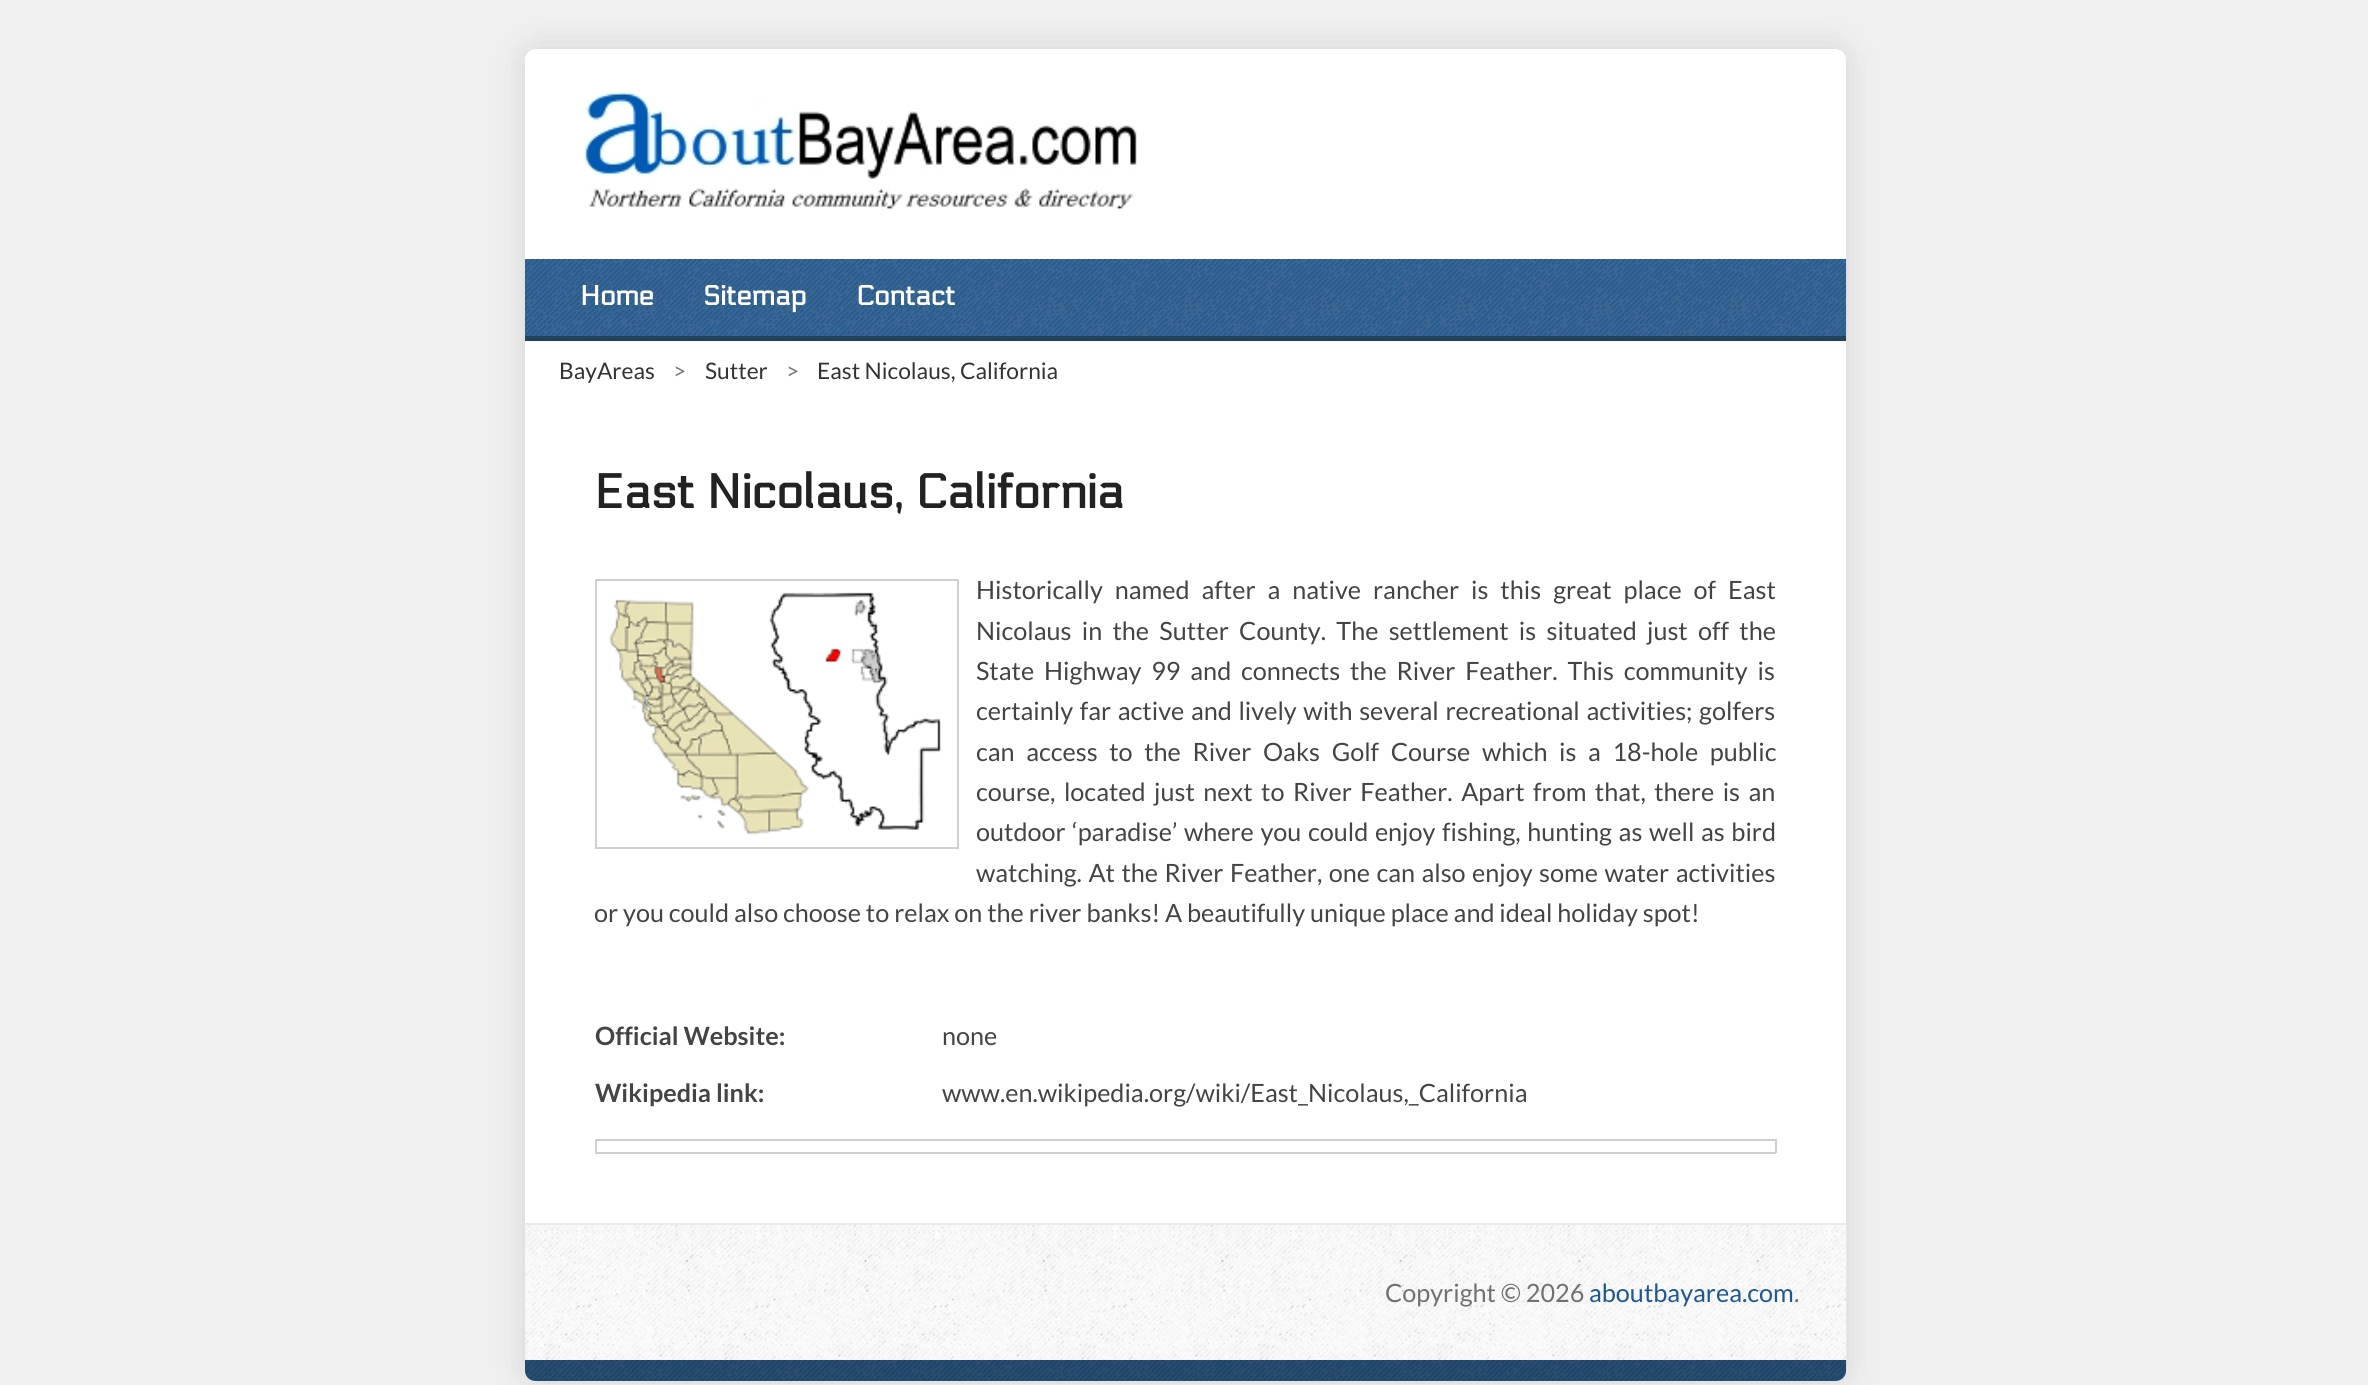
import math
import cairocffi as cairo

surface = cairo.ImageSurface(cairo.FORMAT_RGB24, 2368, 1385)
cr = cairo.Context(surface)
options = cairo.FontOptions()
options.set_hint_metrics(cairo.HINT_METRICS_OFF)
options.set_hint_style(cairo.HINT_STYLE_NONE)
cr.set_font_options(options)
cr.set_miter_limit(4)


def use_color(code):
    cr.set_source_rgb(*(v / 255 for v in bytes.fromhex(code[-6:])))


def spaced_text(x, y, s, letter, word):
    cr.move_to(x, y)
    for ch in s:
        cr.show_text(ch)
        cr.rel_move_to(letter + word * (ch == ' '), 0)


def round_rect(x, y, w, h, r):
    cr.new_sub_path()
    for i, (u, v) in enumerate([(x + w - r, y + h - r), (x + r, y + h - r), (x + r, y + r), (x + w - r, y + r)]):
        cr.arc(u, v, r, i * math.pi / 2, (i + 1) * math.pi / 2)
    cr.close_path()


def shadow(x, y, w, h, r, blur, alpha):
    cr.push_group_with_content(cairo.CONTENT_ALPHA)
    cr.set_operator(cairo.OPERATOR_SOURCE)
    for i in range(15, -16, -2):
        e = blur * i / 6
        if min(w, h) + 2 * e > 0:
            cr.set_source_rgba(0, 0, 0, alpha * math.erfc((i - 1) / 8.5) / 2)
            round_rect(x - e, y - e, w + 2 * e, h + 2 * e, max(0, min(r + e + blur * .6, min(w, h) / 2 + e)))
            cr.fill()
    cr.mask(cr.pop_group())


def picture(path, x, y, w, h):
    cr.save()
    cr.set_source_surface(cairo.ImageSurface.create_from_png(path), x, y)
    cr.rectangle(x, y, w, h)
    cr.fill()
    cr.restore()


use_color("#f0f0f0")
cr.paint()
use_color("#000000")
shadow(525, 49, 1321, 1332, 11, 17.5, 0.12)
use_color("#ffffff")
round_rect(525, 49, 1321, 1332, 11)
cr.fill()
picture("img1.png", 584, 92, 553, 118)
use_color("#1d5892")
cr.rectangle(525, 259, 1321, 77)
cr.fill()
picture("img2.png", 525, 259, 1322, 83)
use_color("#24415d")
cr.rectangle(525, 336, 1321, 5)
cr.fill()
cr.select_font_face("Electrolize", cairo.FONT_SLANT_NORMAL, cairo.FONT_WEIGHT_BOLD)
cr.set_font_size(27.5)
use_color("#ffffff")
cr.move_to(580, 305)
cr.show_text("Home")
cr.move_to(703, 305)
cr.show_text("Sitemap")
cr.move_to(856, 305)
cr.show_text("Contact")
cr.select_font_face("Lato")
cr.set_font_size(22.75)
use_color("#333333")
cr.move_to(559, 379)
cr.show_text("BayAreas")
use_color("#777777")
cr.move_to(673, 379)
cr.show_text(">")
use_color("#333333")
cr.move_to(705, 379)
cr.show_text("Sutter")
use_color("#777777")
cr.move_to(786, 379)
cr.show_text(">")
use_color("#333333")
cr.move_to(817, 379)
cr.show_text("East Nicolaus, California")
cr.select_font_face("Electrolize", cairo.FONT_SLANT_NORMAL, cairo.FONT_WEIGHT_BOLD)
cr.set_font_size(47.9)
use_color("#222222")
cr.move_to(594, 508)
cr.show_text("East Nicolaus, California")
cr.rectangle(596, 580, 362, 268)
use_color("#cfcfcf")
cr.stroke()
picture("img3.png", 609, 592, 333, 243)
cr.select_font_face("Lato")
cr.set_font_size(25.2)
use_color("#444444")
spaced_text(976, 599, "Historically named after a native rancher is this great place of East", 0, 7.1)
spaced_text(976, 640, "Nicolaus in the Sutter County. The settlement is situated just off the", 0, 5.4)
spaced_text(976, 680, "State Highway 99 and connects the River Feather. This community is", 0, 5)
spaced_text(976, 720, "certainly far active and lively with several recreational activities; golfers", 0, 1.75)
spaced_text(976, 761, "can access to the River Oaks Golf Course which is a 18-hole public", 0, 6.75)
spaced_text(976, 801, "course, located just next to River Feather. Apart from that, there is an", 0, 3.6)
spaced_text(976, 841, "outdoor ‘paradise’ where you could enjoy fishing, hunting as well as bird", 0, 1.75)
spaced_text(976, 882, "watching. At the River Feather, one can also enjoy some water activities", 0, 1.6)
cr.move_to(594, 922)
cr.show_text("or you could also choose to relax on the river banks! A beautifully unique place and ideal holiday spot!")
cr.select_font_face("Lato", cairo.FONT_SLANT_NORMAL, cairo.FONT_WEIGHT_BOLD)
cr.move_to(595, 1045)
cr.show_text("Official Website:")
cr.select_font_face("Lato")
cr.move_to(942, 1045)
cr.show_text("none")
cr.select_font_face("Lato", cairo.FONT_SLANT_NORMAL, cairo.FONT_WEIGHT_BOLD)
cr.move_to(595, 1102)
cr.show_text("Wikipedia link:")
cr.select_font_face("Lato")
cr.move_to(942, 1102)
cr.show_text("www.en.wikipedia.org/wiki/East_Nicolaus,_California")
use_color("#cfcfcf")
cr.rectangle(595, 1139, 1181, 2)
cr.fill()
cr.rectangle(1775, 1139, 2, 14)
cr.fill()
cr.rectangle(595, 1152, 1181, 2)
cr.fill()
cr.rectangle(595, 1139, 2, 14)
cr.fill()
picture("img4.png", 525, 1223, 1322, 137)
use_color("#eaeaea")
cr.rectangle(525, 1223, 1321, 2)
cr.fill()
use_color("#717171")
cr.move_to(1385, 1302)
cr.show_text("Copyright © 2026")
use_color("#1d5892")
cr.move_to(1589, 1302)
cr.show_text("aboutbayarea.com")
use_color("#717171")
cr.move_to(1794, 1302)
cr.show_text(".")
use_color("#1d5892")
cr.new_path()
cr.move_to(525, 1360)
cr.line_to(1846, 1360)
cr.line_to(1846, 1370.5)
cr.curve_to(1846, 1376.5, 1841.5, 1381, 1835.5, 1381)
cr.line_to(535.5, 1381)
cr.curve_to(529.5, 1381, 525, 1376.5, 525, 1370.5)
cr.close_path()
cr.fill()
picture("img5.png", 525, 1359, 1322, 22)
surface.write_to_png("result.png")
